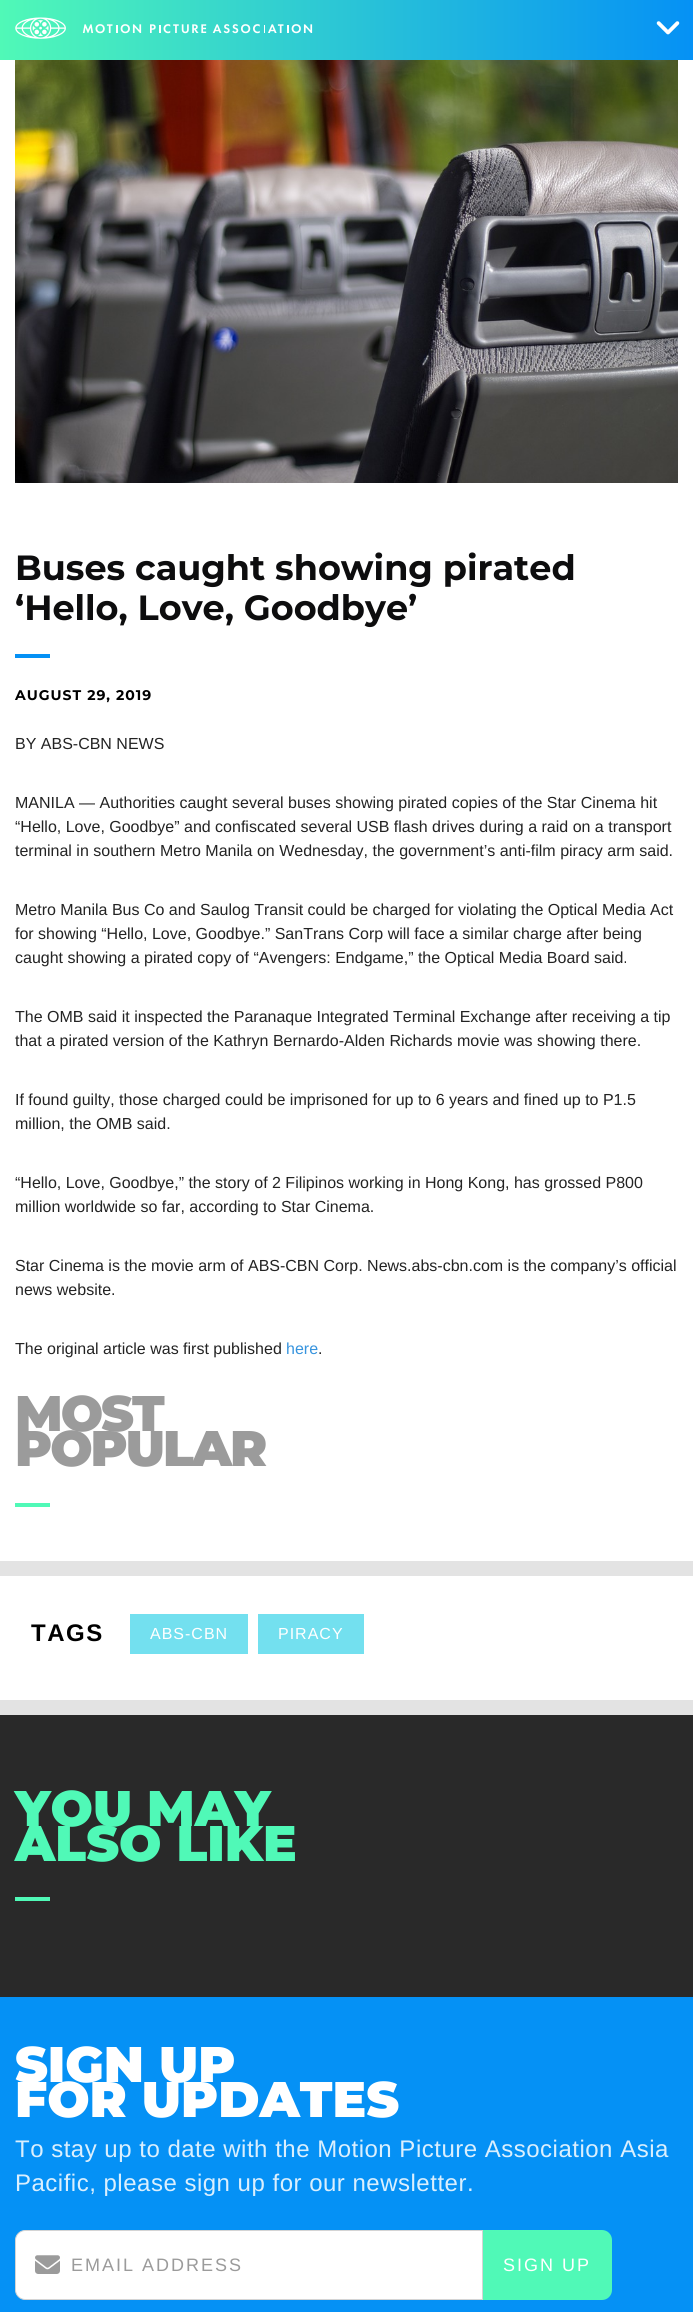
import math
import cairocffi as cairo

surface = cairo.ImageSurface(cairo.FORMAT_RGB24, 693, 2312)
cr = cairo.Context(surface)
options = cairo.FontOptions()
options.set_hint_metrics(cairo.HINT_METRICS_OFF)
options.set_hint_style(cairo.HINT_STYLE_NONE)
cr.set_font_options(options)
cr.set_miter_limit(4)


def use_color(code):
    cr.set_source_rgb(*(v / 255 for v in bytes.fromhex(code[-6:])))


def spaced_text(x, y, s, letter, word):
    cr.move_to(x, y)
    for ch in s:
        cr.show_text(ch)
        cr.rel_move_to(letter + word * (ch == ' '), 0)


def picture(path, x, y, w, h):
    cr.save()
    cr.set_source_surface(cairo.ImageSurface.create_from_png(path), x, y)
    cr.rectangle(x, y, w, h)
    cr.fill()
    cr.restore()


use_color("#ffffff")
cr.paint()
gradient = cairo.LinearGradient(0, 30, 693, 30)
gradient.add_color_stop_rgba(0, 0.314, 0.976, 0.718, 1)
gradient.add_color_stop_rgba(1, 0.02, 0.569, 0.961, 1)
cr.set_source(gradient)
cr.rectangle(0, 0, 693, 60)
cr.fill()
picture("img1.png", 15, 17, 298, 22)
picture("img2.png", 656, 21, 24, 14)
picture("img3.png", 15, 60, 663, 423)
cr.select_font_face("Montserrat", cairo.FONT_SLANT_NORMAL, cairo.FONT_WEIGHT_BOLD)
cr.set_font_size(35)
use_color("#0d0d0e")
cr.move_to(15, 580)
cr.show_text("Buses caught showing pirated")
cr.move_to(15, 620)
cr.show_text("‘Hello, Love, Goodbye’")
use_color("#0591f5")
cr.rectangle(15, 654, 35, 4)
cr.fill()
cr.set_font_size(14)
use_color("#000000")
spaced_text(15, 700, "AUGUST 29, 2019", 1, 0)
cr.select_font_face("Liberation Sans")
cr.set_font_size(16)
use_color("#232323")
cr.move_to(15, 749)
cr.show_text("BY ABS-CBN NEWS")
cr.move_to(15, 808)
cr.show_text("MANILA — Authorities caught several buses showing pirated copies of the Star Cinema hit")
cr.move_to(15, 832)
cr.show_text("“Hello, Love, Goodbye” and confiscated several USB flash drives during a raid on a transport")
cr.move_to(15, 856)
cr.show_text("terminal in southern Metro Manila on Wednesday, the government’s anti-film piracy arm said.")
cr.move_to(15, 915)
cr.show_text("Metro Manila Bus Co and Saulog Transit could be charged for violating the Optical Media Act")
cr.move_to(15, 939)
cr.show_text("for showing “Hello, Love, Goodbye.” SanTrans Corp will face a similar charge after being")
cr.move_to(15, 963)
cr.show_text("caught showing a pirated copy of “Avengers: Endgame,” the Optical Media Board said.")
cr.move_to(15, 1022)
cr.show_text("The OMB said it inspected the Paranaque Integrated Terminal Exchange after receiving a tip")
cr.move_to(15, 1046)
cr.show_text("that a pirated version of the Kathryn Bernardo-Alden Richards movie was showing there.")
cr.move_to(15, 1105)
cr.show_text("If found guilty, those charged could be imprisoned for up to 6 years and fined up to P1.5")
cr.move_to(15, 1129)
cr.show_text("million, the OMB said.")
cr.move_to(15, 1188)
cr.show_text("“Hello, Love, Goodbye,” the story of 2 Filipinos working in Hong Kong, has grossed P800")
cr.move_to(15, 1212)
cr.show_text("million worldwide so far, according to Star Cinema.")
cr.move_to(15, 1271)
cr.show_text("Star Cinema is the movie arm of ABS-CBN Corp. News.abs-cbn.com is the company’s official")
cr.move_to(15, 1295)
cr.show_text("news website.")
cr.move_to(15, 1354)
cr.show_text("The original article was first published")
use_color("#3794de")
cr.move_to(286, 1354)
cr.show_text("here")
use_color("#232323")
cr.move_to(318, 1354)
cr.show_text(".")
cr.select_font_face("Montserrat Black")
cr.set_font_size(50)
use_color("#9b9b9b")
spaced_text(15, 1431, "MOST", -2, 0)
spaced_text(15, 1466, "POPULAR", -2, 0)
use_color("#50f9b7")
cr.rectangle(15, 1503, 35, 4)
cr.fill()
use_color("#e3e3e3")
cr.rectangle(0, 1561, 693, 15)
cr.fill()
cr.rectangle(0, 1700, 693, 15)
cr.fill()
cr.select_font_face("Liberation Sans", cairo.FONT_SLANT_NORMAL, cairo.FONT_WEIGHT_BOLD)
cr.set_font_size(24)
use_color("#000000")
spaced_text(31, 1641, "TAGS", 1.5, 0)
use_color("#73e0ef")
cr.rectangle(130, 1614, 118, 40)
cr.fill()
cr.select_font_face("Liberation Sans")
cr.set_font_size(16)
use_color("#ffffff")
spaced_text(150, 1639, "ABS-CBN", 1, 0)
use_color("#73e0ef")
cr.rectangle(258, 1614, 106, 40)
cr.fill()
use_color("#ffffff")
spaced_text(278, 1639, "PIRACY", 1, 0)
use_color("#292929")
cr.rectangle(0, 1715, 693, 282)
cr.fill()
cr.select_font_face("Montserrat Black")
cr.set_font_size(50)
use_color("#50f9b7")
cr.move_to(15, 1826)
cr.show_text("YOU MAY")
cr.move_to(15, 1861)
cr.show_text("ALSO LIKE")
cr.rectangle(15, 1897, 35, 4)
cr.fill()
use_color("#0591f5")
cr.rectangle(0, 1997, 693, 315)
cr.fill()
use_color("#ffffff")
cr.move_to(15, 2082)
cr.show_text("SIGN UP")
cr.move_to(15, 2117)
cr.show_text("FOR UPDATES")
cr.select_font_face("Liberation Sans")
cr.set_font_size(24)
use_color("#daeffe")
spaced_text(15, 2157, "To stay up to date with the Motion Picture Association Asia", 0.5, 0)
spaced_text(15, 2191, "Pacific, please sign up for our newsletter.", 0.5, 0)
use_color("#50f9b7")
cr.new_path()
cr.move_to(482, 2230)
cr.line_to(602, 2230)
cr.curve_to(607.5, 2230, 612, 2234.5, 612, 2240)
cr.line_to(612, 2290)
cr.curve_to(612, 2295.5, 607.5, 2300, 602, 2300)
cr.line_to(482, 2300)
cr.close_path()
cr.fill()
use_color("#ffffff")
cr.new_path()
cr.move_to(25, 2230.5)
cr.line_to(482.5, 2230.5)
cr.line_to(482.5, 2299.5)
cr.line_to(25, 2299.5)
cr.curve_to(20, 2299.5, 15.5, 2295, 15.5, 2290)
cr.line_to(15.5, 2240)
cr.curve_to(15.5, 2235, 20, 2230.5, 25, 2230.5)
cr.close_path()
cr.fill_preserve()
use_color("#d4d4d4")
cr.set_line_width(1)
cr.stroke()
picture("img4.png", 35, 2255, 25, 19)
cr.set_font_size(18)
use_color("#9b9b9b")
spaced_text(71, 2271, "EMAIL ADDRESS", 2, 0)
use_color("#ffffff")
spaced_text(503, 2271, "SIGN UP", 2, 0)
surface.write_to_png("result.png")
